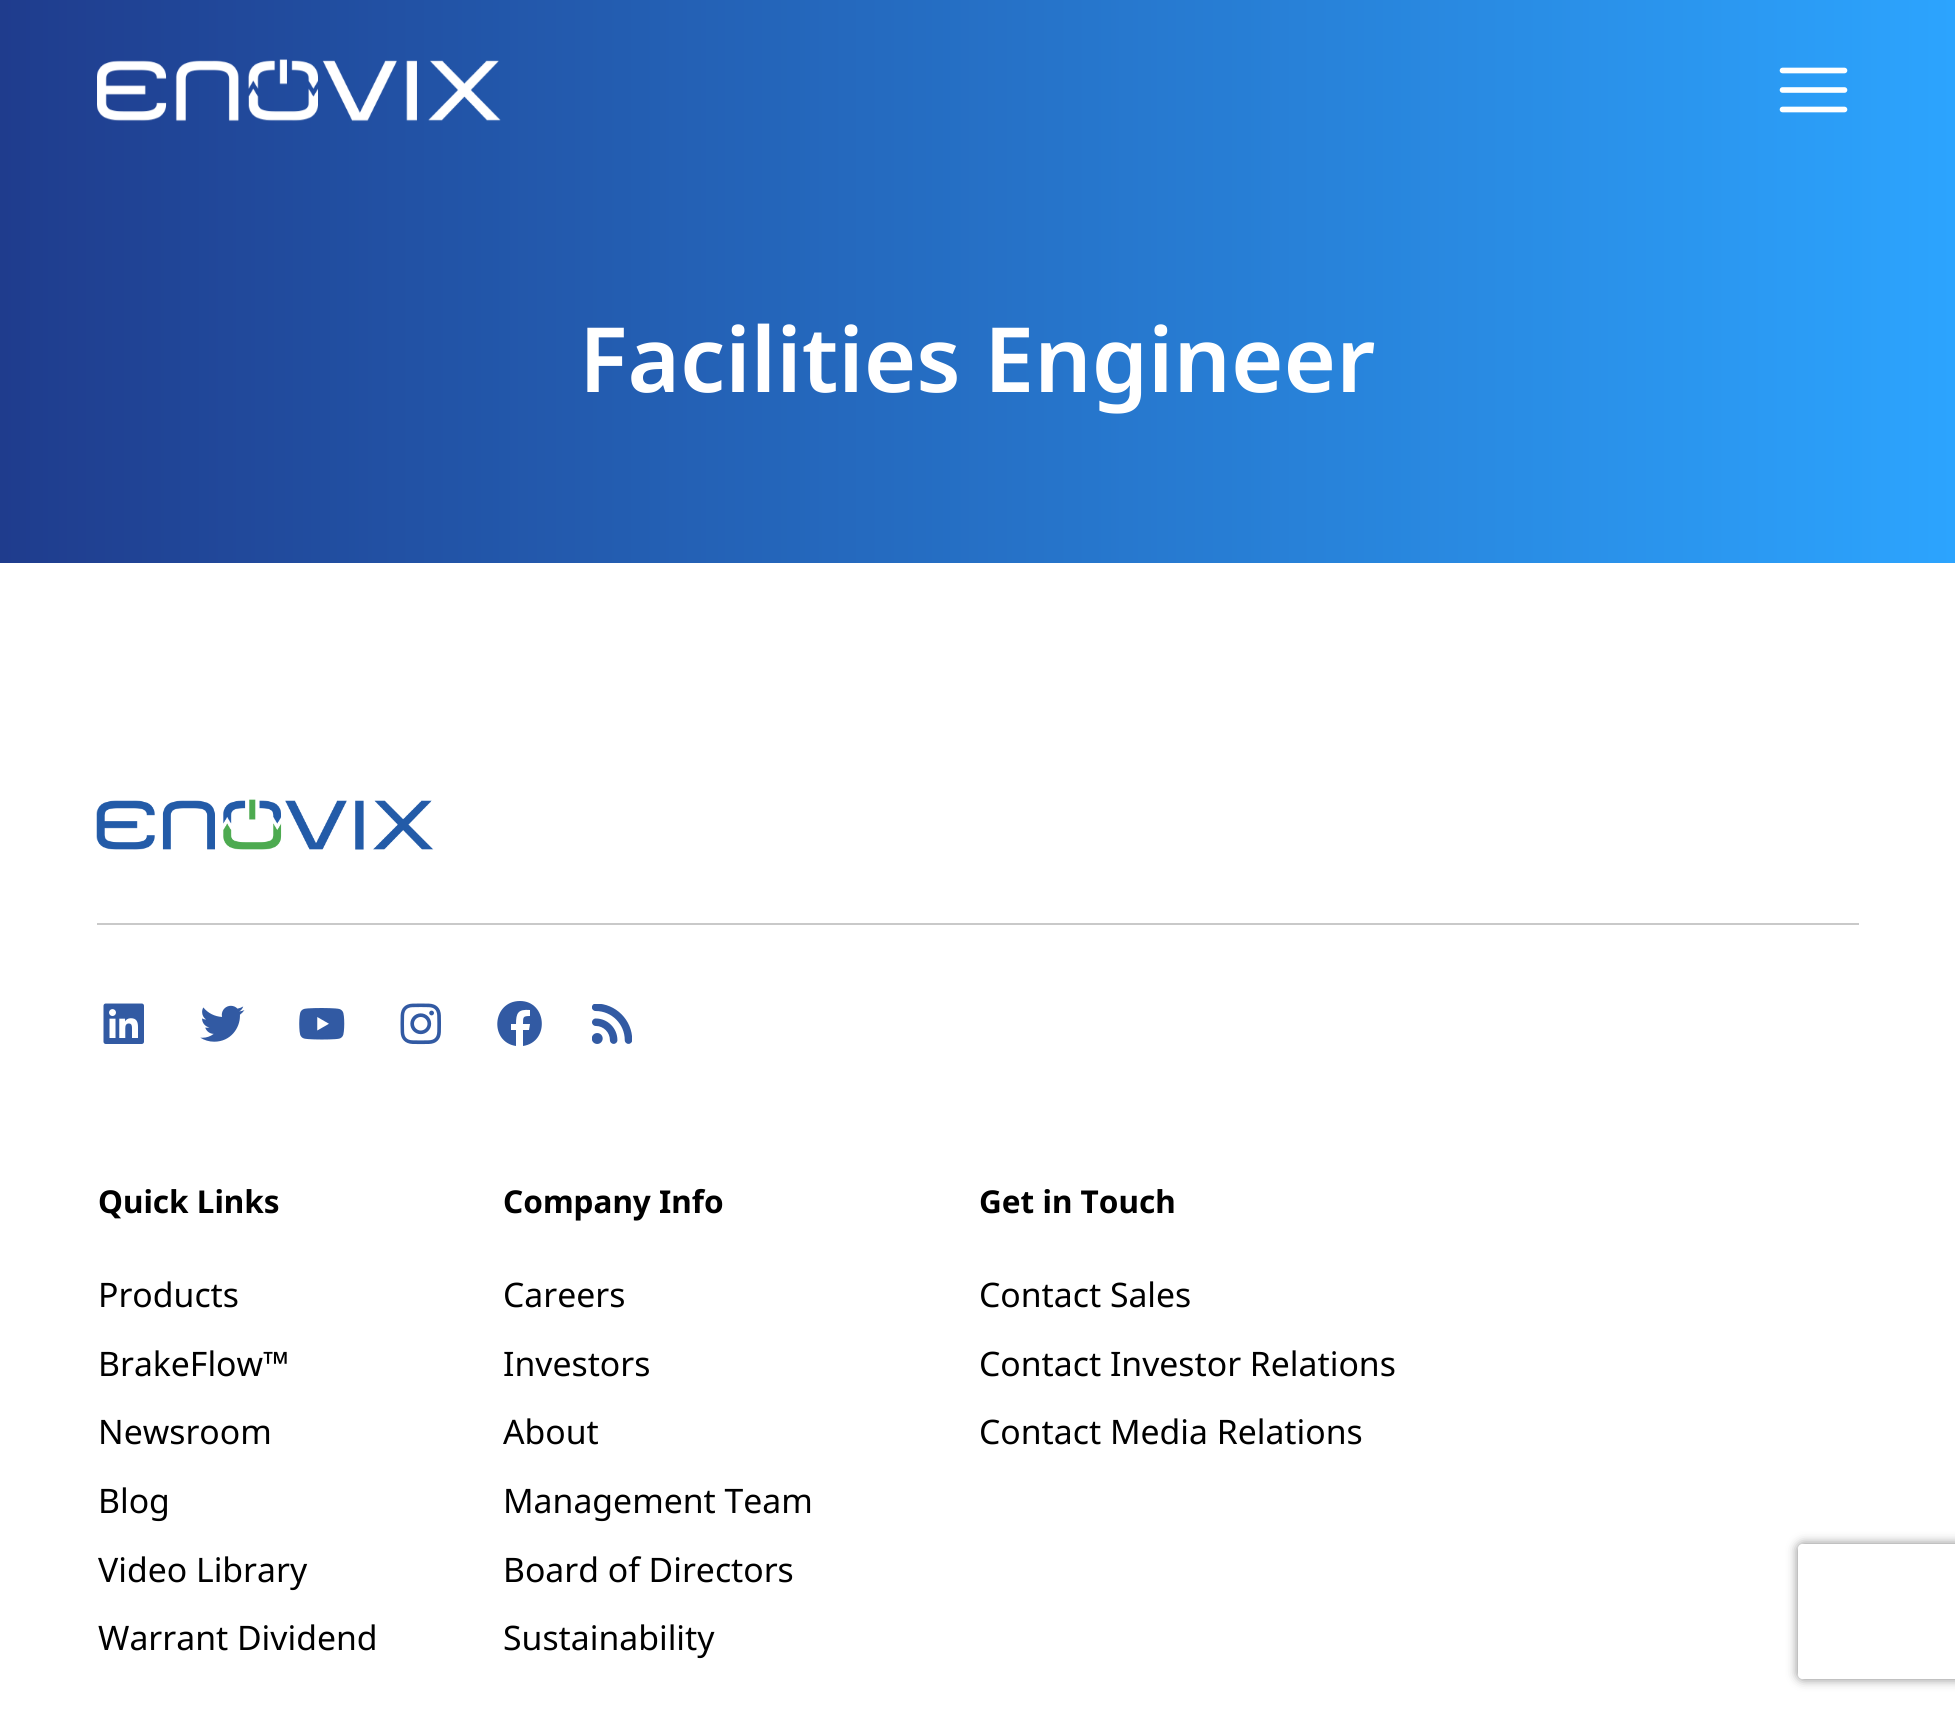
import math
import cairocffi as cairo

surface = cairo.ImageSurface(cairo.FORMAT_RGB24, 1955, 1710)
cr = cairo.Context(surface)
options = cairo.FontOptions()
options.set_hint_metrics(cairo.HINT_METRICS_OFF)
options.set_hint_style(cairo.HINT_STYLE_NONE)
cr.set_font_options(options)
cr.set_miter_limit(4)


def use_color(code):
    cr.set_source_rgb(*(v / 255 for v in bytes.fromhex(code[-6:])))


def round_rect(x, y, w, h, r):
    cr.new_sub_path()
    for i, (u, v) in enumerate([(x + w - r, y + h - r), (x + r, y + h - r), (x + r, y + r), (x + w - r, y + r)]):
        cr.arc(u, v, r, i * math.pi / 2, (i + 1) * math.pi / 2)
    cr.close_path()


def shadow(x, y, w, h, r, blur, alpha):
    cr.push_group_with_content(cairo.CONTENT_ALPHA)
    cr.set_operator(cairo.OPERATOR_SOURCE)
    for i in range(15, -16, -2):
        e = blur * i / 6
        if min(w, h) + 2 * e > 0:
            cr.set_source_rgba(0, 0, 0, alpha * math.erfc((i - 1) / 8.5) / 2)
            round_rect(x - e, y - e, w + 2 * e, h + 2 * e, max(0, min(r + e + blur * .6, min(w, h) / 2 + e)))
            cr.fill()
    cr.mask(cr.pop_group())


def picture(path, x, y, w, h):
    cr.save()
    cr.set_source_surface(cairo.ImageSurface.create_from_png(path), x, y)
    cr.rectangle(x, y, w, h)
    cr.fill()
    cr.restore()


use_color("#ffffff")
cr.paint()
gradient = cairo.LinearGradient(0, 281, 1955, 281)
gradient.add_color_stop_rgba(0, 0.122, 0.235, 0.553, 1)
gradient.add_color_stop_rgba(1, 0.173, 0.643, 0.996, 1)
cr.set_source(gradient)
cr.rectangle(0, 0, 1955, 563)
cr.fill()
picture("img1.png", 97, 59, 404, 63)
cr.new_path()
cr.move_to(1782.5, 70.5)
cr.line_to(1844.5, 70.5)
cr.move_to(1782.5, 90)
cr.line_to(1844.5, 90)
cr.move_to(1782.5, 109.5)
cr.line_to(1844.5, 109.5)
use_color("#ffffff")
cr.set_line_width(5.6)
cr.set_line_cap(cairo.LINE_CAP_ROUND)
cr.set_line_join(cairo.LINE_JOIN_ROUND)
cr.stroke()
cr.select_font_face("Noto Sans SemiBold")
cr.set_font_size(90)
cr.move_to(579, 392)
cr.show_text("Facilities Engineer")
picture("img2.png", 96, 799, 338, 51)
use_color("#c9c9c9")
cr.rectangle(97, 923, 1762, 2)
cr.fill()
picture("img3.png", 103, 1003, 41, 41)
picture("img4.png", 200, 1005, 45, 37)
picture("img5.png", 299, 1008, 46, 32)
picture("img6.png", 400, 1003, 41, 42)
use_color("#325aa3")
cr.new_path()
cr.move_to(520, 1001)
cr.curve_to(492, 1001, 489, 1042, 516, 1046)
cr.line_to(516, 1030)
cr.line_to(511, 1030)
cr.line_to(511, 1024)
cr.line_to(516, 1024)
cr.curve_to(516, 1013, 518, 1009, 530, 1010)
cr.line_to(530, 1016)
cr.curve_to(523, 1016, 523, 1017, 523, 1024)
cr.line_to(530, 1024)
cr.line_to(529, 1030)
cr.line_to(523, 1030)
cr.line_to(523, 1046)
cr.curve_to(550, 1042, 547, 1001, 520, 1001)
cr.close_path()
cr.fill()
picture("img7.png", 592, 1004, 40, 40)
cr.select_font_face("Noto Sans", cairo.FONT_SLANT_NORMAL, cairo.FONT_WEIGHT_BOLD)
cr.set_font_size(31.5)
use_color("#000000")
cr.move_to(98, 1213)
cr.show_text("Quick Links")
cr.select_font_face("Noto Sans")
cr.set_font_size(33.75)
cr.move_to(98, 1307)
cr.show_text("Products")
cr.move_to(98, 1376)
cr.show_text("BrakeFlow™")
cr.move_to(98, 1444)
cr.show_text("Newsroom")
cr.move_to(98, 1513)
cr.show_text("Blog")
cr.move_to(98, 1582)
cr.show_text("Video Library")
cr.move_to(98, 1650)
cr.show_text("Warrant Dividend")
cr.select_font_face("Noto Sans", cairo.FONT_SLANT_NORMAL, cairo.FONT_WEIGHT_BOLD)
cr.set_font_size(31.5)
cr.move_to(503, 1213)
cr.show_text("Company Info")
cr.select_font_face("Noto Sans")
cr.set_font_size(33.75)
cr.move_to(503, 1307)
cr.show_text("Careers")
cr.move_to(503, 1376)
cr.show_text("Investors")
cr.move_to(503, 1444)
cr.show_text("About")
cr.move_to(503, 1513)
cr.show_text("Management Team")
cr.move_to(503, 1582)
cr.show_text("Board of Directors")
cr.move_to(503, 1650)
cr.show_text("Sustainability")
cr.select_font_face("Noto Sans", cairo.FONT_SLANT_NORMAL, cairo.FONT_WEIGHT_BOLD)
cr.set_font_size(31.5)
cr.move_to(979, 1213)
cr.show_text("Get in Touch")
cr.select_font_face("Noto Sans")
cr.set_font_size(33.75)
cr.move_to(979, 1307)
cr.show_text("Contact Sales")
cr.move_to(979, 1376)
cr.show_text("Contact Investor Relations")
cr.move_to(979, 1444)
cr.show_text("Contact Media Relations")
cr.save()
cr.set_fill_rule(cairo.FILL_RULE_EVEN_ODD)
cr.new_path()
cr.move_to(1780, 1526)
cr.line_to(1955, 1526)
cr.line_to(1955, 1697)
cr.line_to(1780, 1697)
cr.close_path()
cr.move_to(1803, 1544)
cr.line_to(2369, 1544)
cr.curve_to(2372, 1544, 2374, 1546, 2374, 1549)
cr.line_to(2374, 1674)
cr.curve_to(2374, 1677, 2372, 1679, 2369, 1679)
cr.line_to(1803, 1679)
cr.curve_to(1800, 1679, 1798, 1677, 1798, 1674)
cr.line_to(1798, 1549)
cr.curve_to(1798, 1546, 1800, 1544, 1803, 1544)
cr.close_path()
cr.clip()
use_color("#808080")
shadow(1798, 1544, 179, 135, 5, 5.5, 1)
cr.restore()
surface.write_to_png("result.png")
